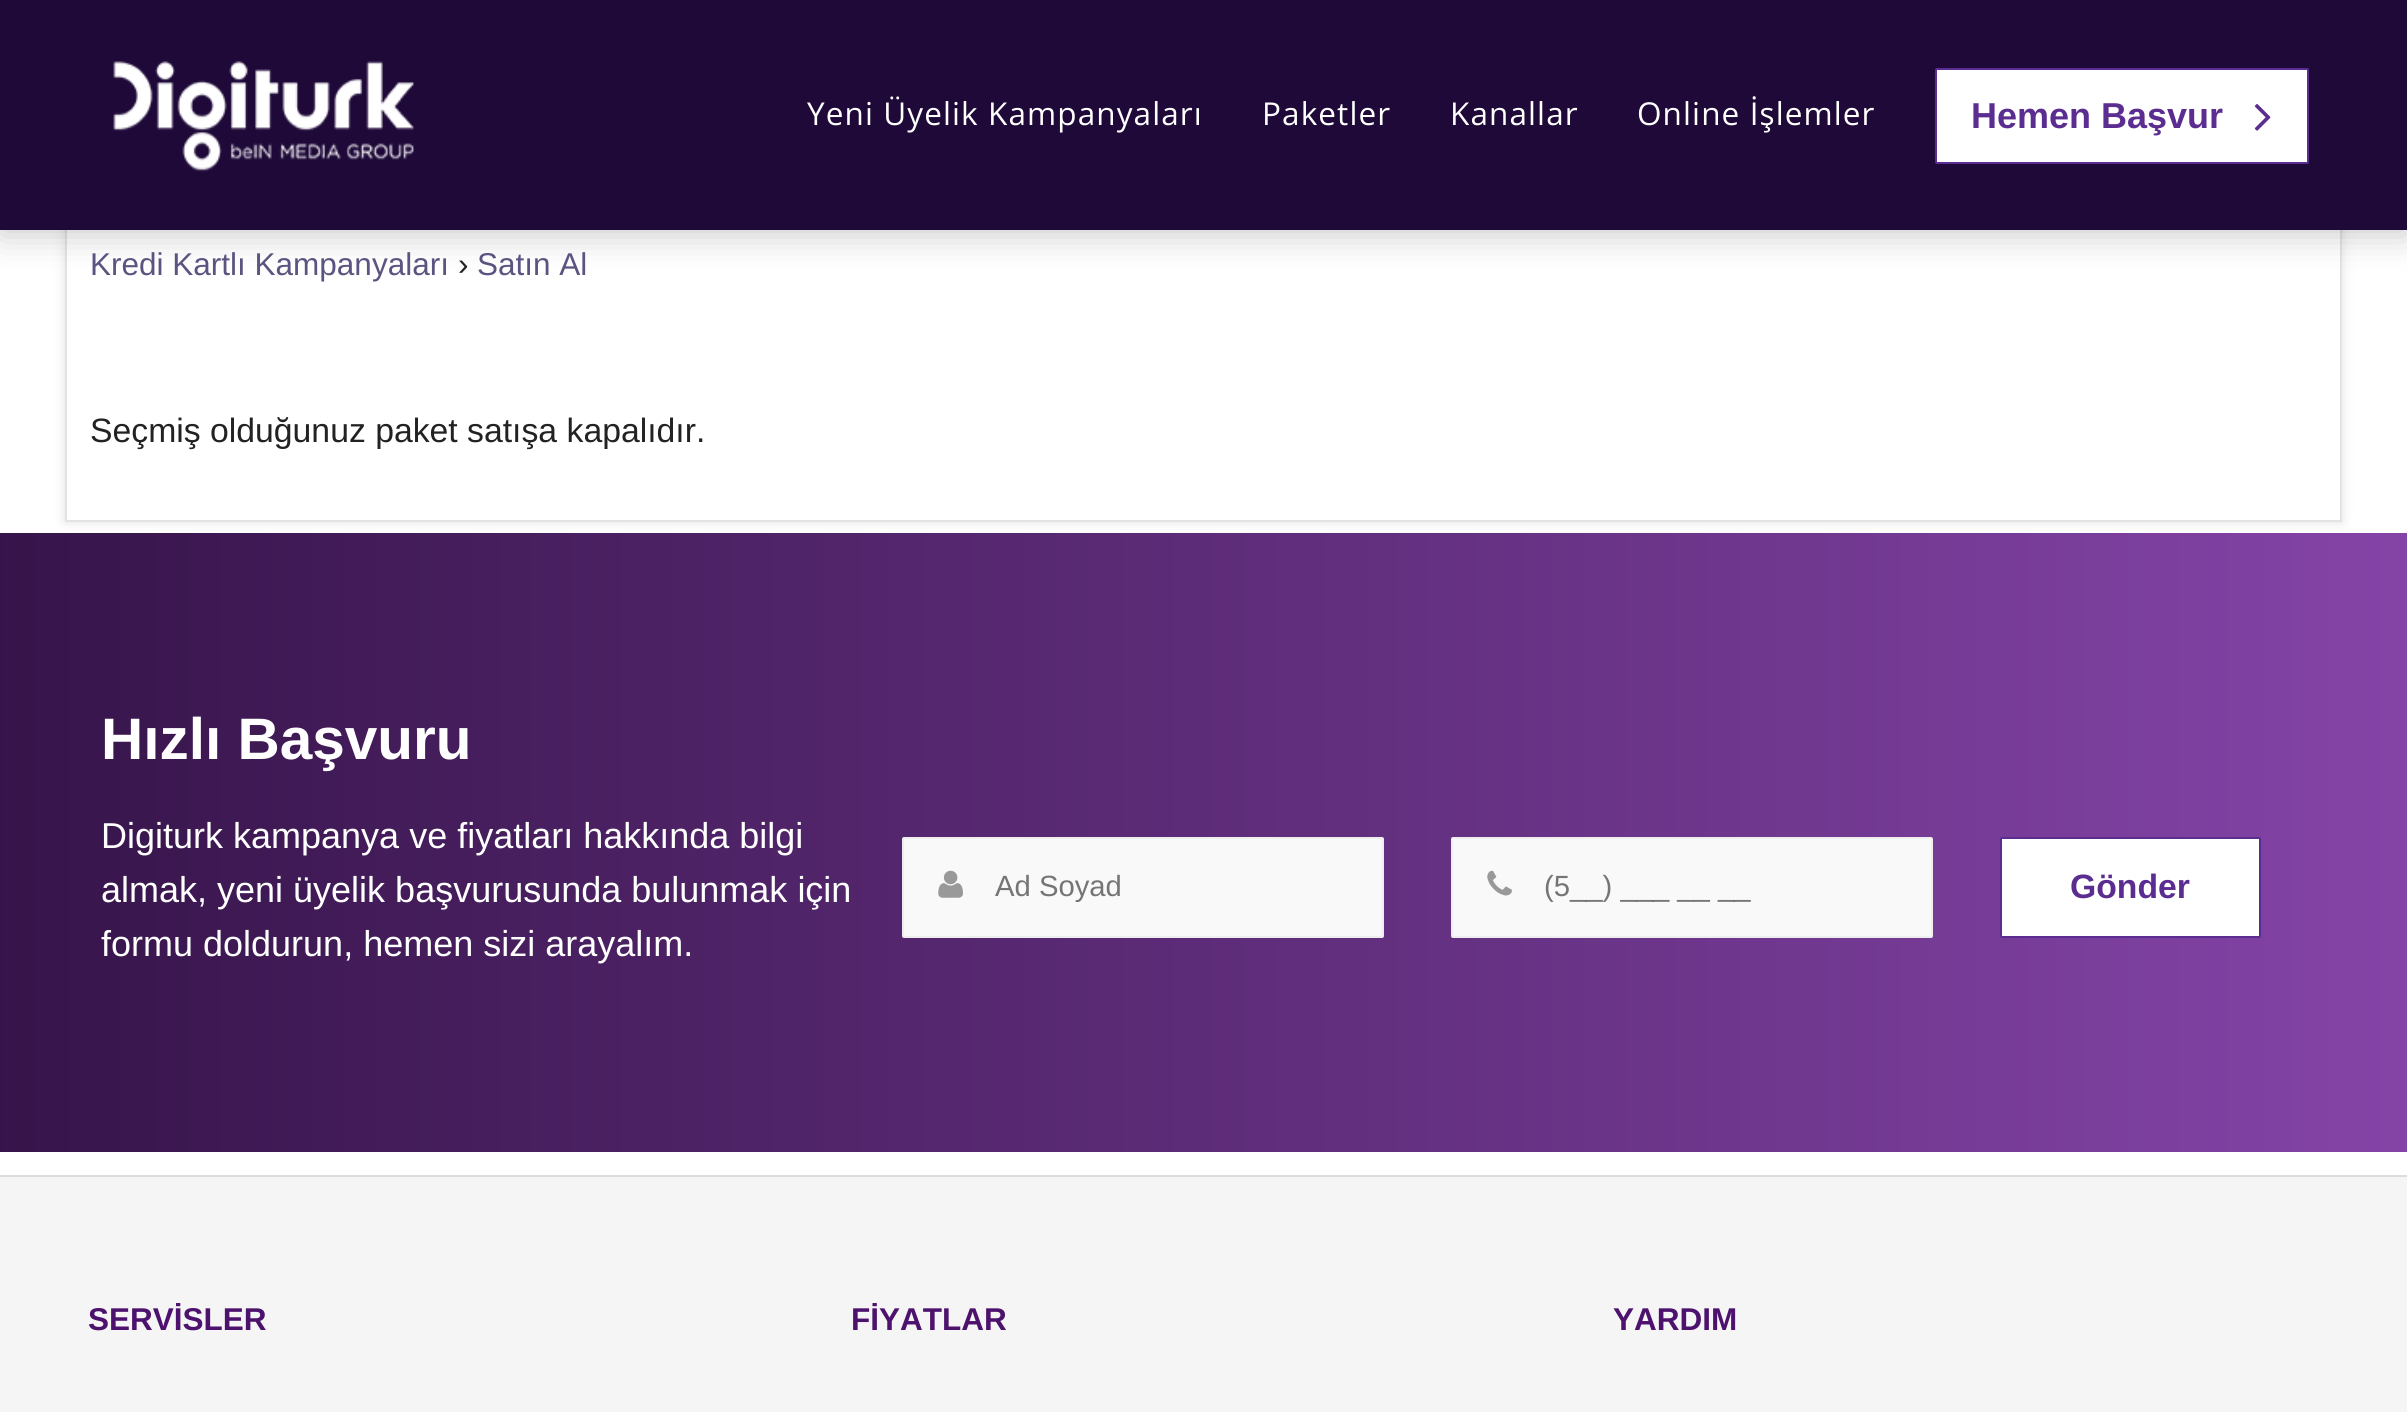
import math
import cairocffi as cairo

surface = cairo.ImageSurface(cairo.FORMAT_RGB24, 2407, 1412)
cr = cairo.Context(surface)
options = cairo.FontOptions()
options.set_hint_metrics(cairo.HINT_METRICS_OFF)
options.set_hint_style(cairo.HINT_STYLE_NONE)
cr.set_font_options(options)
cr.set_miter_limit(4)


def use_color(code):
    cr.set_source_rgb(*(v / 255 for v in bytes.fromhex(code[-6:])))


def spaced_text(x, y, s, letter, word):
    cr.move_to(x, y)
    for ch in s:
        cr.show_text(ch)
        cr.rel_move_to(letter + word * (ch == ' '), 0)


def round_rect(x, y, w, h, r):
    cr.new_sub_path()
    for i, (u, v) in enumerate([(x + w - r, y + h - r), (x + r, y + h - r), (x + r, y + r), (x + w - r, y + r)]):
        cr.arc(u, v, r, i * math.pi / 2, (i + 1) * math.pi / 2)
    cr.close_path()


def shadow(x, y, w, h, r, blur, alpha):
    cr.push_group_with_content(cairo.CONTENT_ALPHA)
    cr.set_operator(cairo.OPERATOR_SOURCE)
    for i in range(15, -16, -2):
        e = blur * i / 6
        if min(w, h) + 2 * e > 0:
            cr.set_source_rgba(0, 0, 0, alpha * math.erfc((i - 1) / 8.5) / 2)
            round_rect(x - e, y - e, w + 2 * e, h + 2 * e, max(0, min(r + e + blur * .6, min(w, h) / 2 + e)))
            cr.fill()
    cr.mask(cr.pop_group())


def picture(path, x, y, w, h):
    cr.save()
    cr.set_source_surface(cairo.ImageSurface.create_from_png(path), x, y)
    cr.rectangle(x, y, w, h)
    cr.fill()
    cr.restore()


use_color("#ffffff")
cr.paint()
use_color("#e4e2e2")
shadow(65, 225, 2277, 297, 0, 5.5, 1)
use_color("#ffffff")
cr.rectangle(67, 230, 2273, 290)
cr.fill()
cr.rectangle(66, 226, 2275, 295)
use_color("#e4e2e2")
cr.stroke()
use_color("#000000")
shadow(0, 7, 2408, 229, 0, 17, 0.2)
use_color("#1e0938")
cr.rectangle(0, 0, 2407, 230)
cr.fill()
picture("img1.png", 113, 61, 301, 111)
cr.select_font_face("Open Sans")
cr.set_font_size(31.5)
use_color("#ffffff")
spaced_text(807, 125, "Yeni Üyelik Kampanyaları", 1.1, 0)
spaced_text(1262, 125, "Paketler", 1.1, 0)
spaced_text(1450, 125, "Kanallar", 1.1, 0)
spaced_text(1637, 125, "Online İşlemler", 1.1, 0)
round_rect(1936, 69, 372, 94, 1)
cr.fill_preserve()
use_color("#5b2d90")
cr.stroke()
cr.select_font_face("Liberation Sans", cairo.FONT_SLANT_NORMAL, cairo.FONT_WEIGHT_BOLD)
cr.set_font_size(36)
cr.move_to(1971, 128)
cr.show_text("Hemen Başvur")
picture("img2.png", 2254, 104, 17, 27)
cr.select_font_face("Liberation Sans")
cr.set_font_size(31.5)
use_color("#5c5380")
cr.move_to(90, 275)
cr.show_text("Kredi Kartlı Kampanyaları")
use_color("#222222")
cr.move_to(458, 275)
cr.show_text("›")
use_color("#5c5380")
cr.move_to(477, 275)
cr.show_text("Satın Al")
cr.set_font_size(33.75)
use_color("#222222")
cr.move_to(90, 442)
cr.show_text("Seçmiş olduğunuz paket satışa kapalıdır.")
gradient = cairo.LinearGradient(-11, 843, 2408, 843)
gradient.add_color_stop_rgba(0, 0.212, 0.078, 0.29, 1)
gradient.add_color_stop_rgba(1, 0.518, 0.267, 0.655, 1)
cr.set_source(gradient)
cr.rectangle(0, 533, 2407, 619)
cr.fill()
cr.select_font_face("Liberation Sans", cairo.FONT_SLANT_NORMAL, cairo.FONT_WEIGHT_BOLD)
cr.set_font_size(58.5)
use_color("#ffffff")
cr.move_to(101, 759)
cr.show_text("Hızlı Başvuru")
cr.select_font_face("Liberation Sans")
cr.set_font_size(36)
cr.move_to(101, 848)
cr.show_text("Digiturk kampanya ve fiyatları hakkında bilgi")
cr.move_to(101, 902)
cr.show_text("almak, yeni üyelik başvurusunda bulunmak için")
cr.move_to(101, 956)
cr.show_text("formu doldurun, hemen sizi arayalım.")
use_color("#f9f9f9")
round_rect(903, 838, 480, 99, 1)
cr.fill_preserve()
use_color("#eeeeee")
cr.stroke()
picture("img3.png", 938, 870, 25, 28)
cr.set_font_size(29.25)
use_color("#757575")
cr.move_to(995, 896)
cr.show_text("Ad Soyad")
use_color("#f9f9f9")
round_rect(1452, 838, 480, 99, 1)
cr.fill_preserve()
use_color("#eeeeee")
cr.stroke()
picture("img4.png", 1487, 870, 25, 26)
cr.save()
cr.rectangle(1544, 869, 342, 33)
cr.clip()
use_color("#757575")
cr.move_to(1544, 896)
cr.show_text("(5__) ___ __ __")
cr.restore()
use_color("#ffffff")
round_rect(2001, 838, 259, 99, 1)
cr.fill_preserve()
use_color("#5b2d90")
cr.stroke()
cr.select_font_face("Liberation Sans", cairo.FONT_SLANT_NORMAL, cairo.FONT_WEIGHT_BOLD)
cr.set_font_size(33.75)
cr.move_to(2070, 898)
cr.show_text("Gönder")
use_color("#f5f5f5")
cr.rectangle(0, 1177, 2407, 235)
cr.fill()
use_color("#dddddd")
cr.rectangle(0, 1175, 2407, 2)
cr.fill()
cr.set_font_size(31.5)
use_color("#4d126d")
cr.move_to(88, 1330)
cr.show_text("SERVİSLER")
cr.move_to(851, 1330)
cr.show_text("FİYATLAR")
cr.move_to(1613, 1330)
cr.show_text("YARDIM")
surface.write_to_png("result.png")
